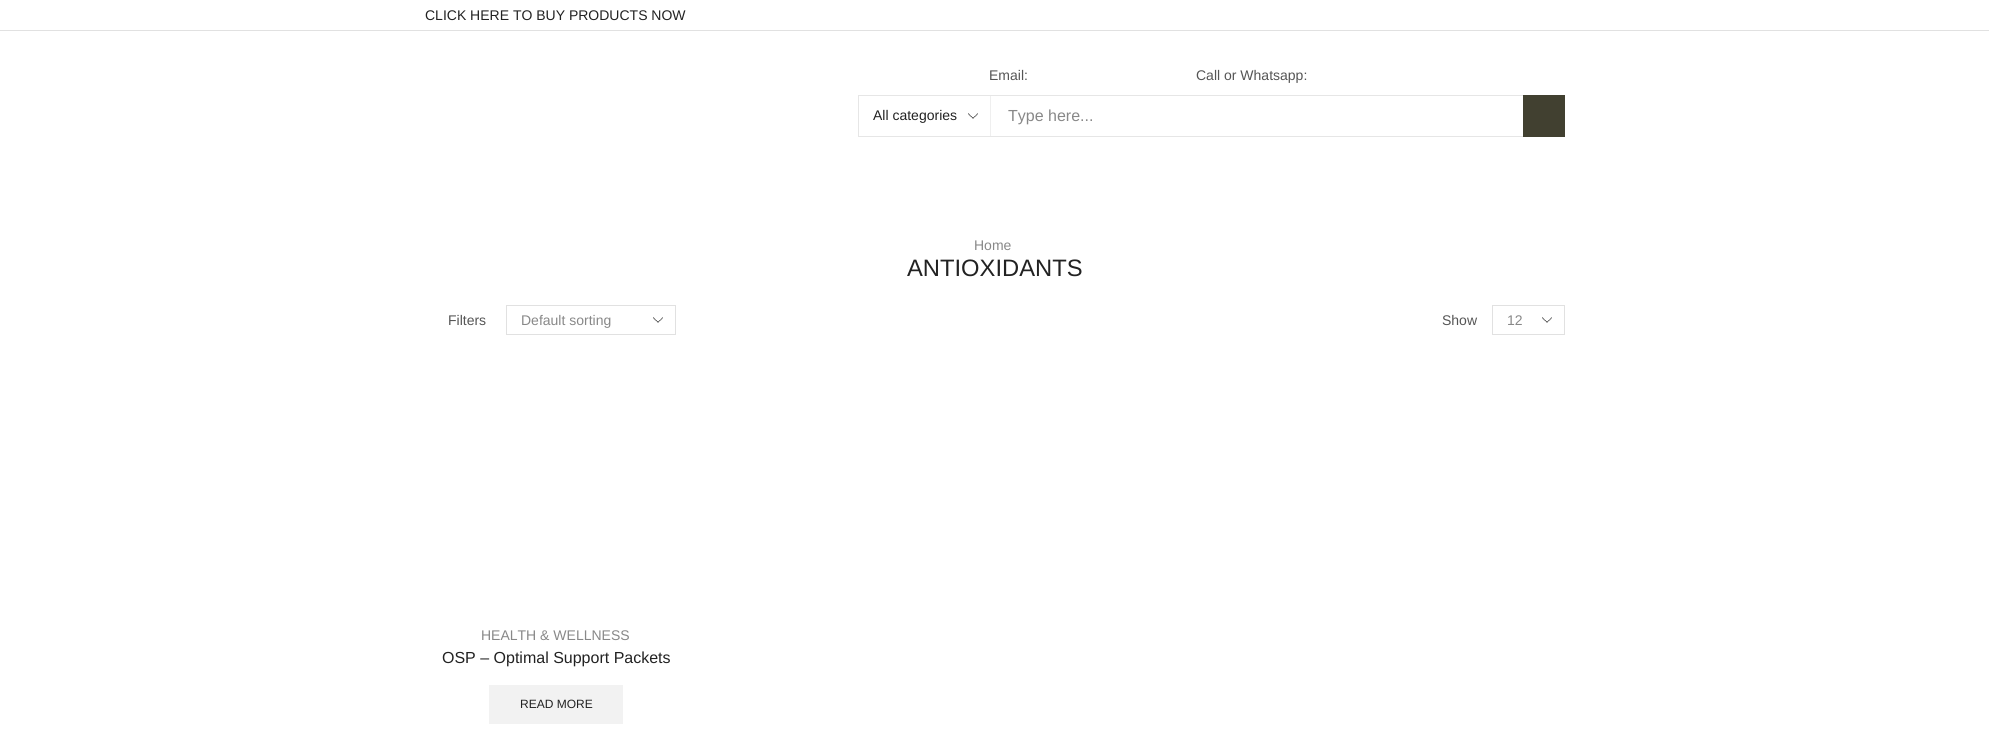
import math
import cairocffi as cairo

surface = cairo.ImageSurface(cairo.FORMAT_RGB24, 1989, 741)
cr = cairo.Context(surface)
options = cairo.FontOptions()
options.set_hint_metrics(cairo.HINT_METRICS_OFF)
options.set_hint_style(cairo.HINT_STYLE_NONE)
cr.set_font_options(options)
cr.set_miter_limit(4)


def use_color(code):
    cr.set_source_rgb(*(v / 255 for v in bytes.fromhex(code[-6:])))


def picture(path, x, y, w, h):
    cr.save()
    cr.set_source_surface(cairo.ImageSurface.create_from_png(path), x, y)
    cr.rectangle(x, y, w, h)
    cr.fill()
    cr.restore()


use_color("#ffffff")
cr.paint()
use_color("#e1e1e1")
cr.rectangle(0, 30, 1989, 1)
cr.fill()
cr.select_font_face("Liberation Sans")
cr.set_font_size(14)
use_color("#222222")
cr.move_to(425, 20)
cr.show_text("CLICK HERE TO BUY PRODUCTS NOW")
use_color("#555555")
cr.move_to(989, 80)
cr.show_text("Email:")
cr.move_to(1196, 80)
cr.show_text("Call or Whatsapp:")
cr.rectangle(858.5, 95.5, 706, 41)
use_color("#e6e6e6")
cr.set_line_width(1)
cr.stroke()
picture("img1.png", 968, 113, 10, 6)
use_color("#efefef")
cr.rectangle(990, 96, 1, 40)
cr.fill()
use_color("#222222")
cr.move_to(873, 120)
cr.show_text("All categories")
cr.set_font_size(16)
use_color("#888888")
cr.move_to(1008, 121)
cr.show_text("Type here...")
use_color("#414030")
cr.rectangle(1523, 95, 42, 42)
cr.fill()
cr.set_font_size(14)
use_color("#888888")
cr.move_to(974, 250)
cr.show_text("Home")
cr.set_font_size(23.75)
use_color("#222222")
cr.move_to(907, 276)
cr.show_text("ANTIOXIDANTS")
cr.set_font_size(14)
use_color("#555555")
cr.move_to(448, 325)
cr.show_text("Filters")
picture("img1.png", 653, 317, 10, 6)
cr.rectangle(506.5, 305.5, 169, 29)
use_color("#e1e1e1")
cr.stroke()
use_color("#888888")
cr.move_to(521, 325)
cr.show_text("Default sorting")
use_color("#555555")
cr.move_to(1442, 325)
cr.show_text("Show")
picture("img1.png", 1542, 317, 10, 6)
cr.rectangle(1492.5, 305.5, 72, 29)
use_color("#e1e1e1")
cr.stroke()
use_color("#888888")
cr.move_to(1507, 325)
cr.show_text("12")
cr.move_to(481, 640)
cr.show_text("HEALTH & WELLNESS")
cr.set_font_size(16)
use_color("#222222")
cr.move_to(442, 663)
cr.show_text("OSP – Optimal Support Packets")
use_color("#f2f2f2")
cr.rectangle(489, 685, 134, 39)
cr.fill()
cr.set_font_size(12)
use_color("#222222")
cr.move_to(520, 708)
cr.show_text("READ MORE")
surface.write_to_png("result.png")
